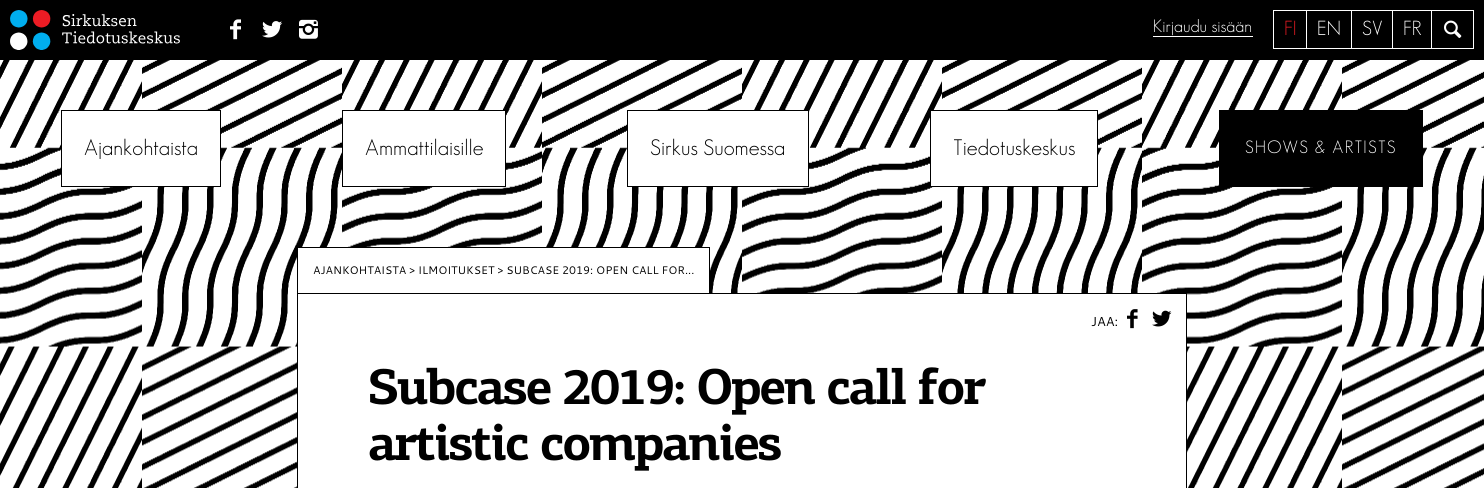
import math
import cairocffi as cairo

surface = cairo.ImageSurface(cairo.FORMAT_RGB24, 1484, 488)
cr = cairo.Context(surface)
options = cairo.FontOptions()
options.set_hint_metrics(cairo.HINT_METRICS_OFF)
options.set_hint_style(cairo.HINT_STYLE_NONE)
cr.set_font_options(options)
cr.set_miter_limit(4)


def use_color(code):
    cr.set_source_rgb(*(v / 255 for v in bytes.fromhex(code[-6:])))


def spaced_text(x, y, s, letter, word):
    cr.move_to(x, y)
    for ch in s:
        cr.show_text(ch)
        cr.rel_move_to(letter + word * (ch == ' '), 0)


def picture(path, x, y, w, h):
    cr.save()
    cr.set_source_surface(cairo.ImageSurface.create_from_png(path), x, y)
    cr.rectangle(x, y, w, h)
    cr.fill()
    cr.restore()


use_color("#ffffff")
cr.paint()
picture("img1.png", 0, 60, 1484, 428)
use_color("#000000")
cr.rectangle(0, 0, 1484, 60)
cr.fill()
picture("img2.png", 10, 10, 170, 40)
picture("img3.png", 230, 19, 11, 21)
picture("img4.png", 262, 21, 21, 17)
picture("img5.png", 299, 19, 19, 20)
cr.select_font_face("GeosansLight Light")
cr.set_font_size(17.5)
use_color("#ffffff")
cr.move_to(1153, 32)
cr.show_text("Kirjaudu sisään")
cr.rectangle(1153, 36, 100, 1)
cr.fill()
cr.rectangle(1273.5, 10.5, 33, 38)
cr.set_line_width(1)
cr.stroke()
cr.set_font_size(20)
use_color("#ed1c24")
cr.move_to(1284, 35)
cr.show_text("FI")
use_color("#ffffff")
cr.rectangle(1307, 10, 125, 1)
cr.fill()
cr.rectangle(1351, 10, 1, 39)
cr.fill()
cr.rectangle(1307, 48, 45, 1)
cr.fill()
cr.move_to(1317, 35)
cr.show_text("EN")
cr.rectangle(1392, 10, 1, 39)
cr.fill()
cr.rectangle(1352, 48, 41, 1)
cr.fill()
cr.move_to(1362, 35)
cr.show_text("SV")
cr.rectangle(1431, 10, 1, 39)
cr.fill()
cr.rectangle(1393, 48, 39, 1)
cr.fill()
cr.move_to(1403, 35)
cr.show_text("FR")
cr.rectangle(1432, 10, 42, 1)
cr.fill()
cr.rectangle(1473, 10, 1, 39)
cr.fill()
cr.rectangle(1432, 48, 42, 1)
cr.fill()
picture("img6.png", 1444, 20, 18, 18)
cr.rectangle(61.5, 110.5, 159, 76)
cr.fill_preserve()
use_color("#000000")
cr.stroke()
cr.set_font_size(22)
cr.move_to(84, 155)
cr.show_text("Ajankohtaista")
use_color("#ffffff")
cr.rectangle(342.5, 110.5, 163, 76)
cr.fill_preserve()
use_color("#000000")
cr.stroke()
cr.move_to(365, 155)
cr.show_text("Ammattilaisille")
use_color("#ffffff")
cr.rectangle(627.5, 110.5, 181, 76)
cr.fill_preserve()
use_color("#000000")
cr.stroke()
cr.move_to(650, 155)
cr.show_text("Sirkus Suomessa")
use_color("#ffffff")
cr.rectangle(930.5, 110.5, 167, 76)
cr.fill_preserve()
use_color("#000000")
cr.stroke()
cr.move_to(953, 155)
cr.show_text("Tiedotuskeskus")
cr.rectangle(1219, 110, 204, 77)
cr.fill()
cr.set_font_size(17.5)
use_color("#ffffff")
spaced_text(1245, 153, "SHOWS & ARTISTS", 1.25, 0)
cr.rectangle(298, 248, 411, 45)
cr.fill()
use_color("#000000")
cr.rectangle(297, 247, 413, 1)
cr.fill()
cr.rectangle(709, 247, 1, 28)
cr.fill()
cr.rectangle(297, 247, 1, 47)
cr.fill()
cr.select_font_face("Cantarell")
cr.set_font_size(11)
cr.move_to(313, 274)
cr.show_text("AJANKOHTAISTA > ILMOITUKSET > SUBCASE 2019: OPEN CALL FOR...")
use_color("#ffffff")
cr.rectangle(297.5, 293.5, 889, 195)
cr.fill_preserve()
use_color("#000000")
cr.stroke()
cr.set_font_size(13)
cr.move_to(1091, 326)
cr.show_text("JAA:")
picture("img7.png", 1127, 309, 11, 20)
picture("img8.png", 1152, 310, 20, 17)
picture("img9.png", 370, 367, 616, 48)
picture("img10.png", 369, 423, 412, 48)
surface.write_to_png("result.png")
